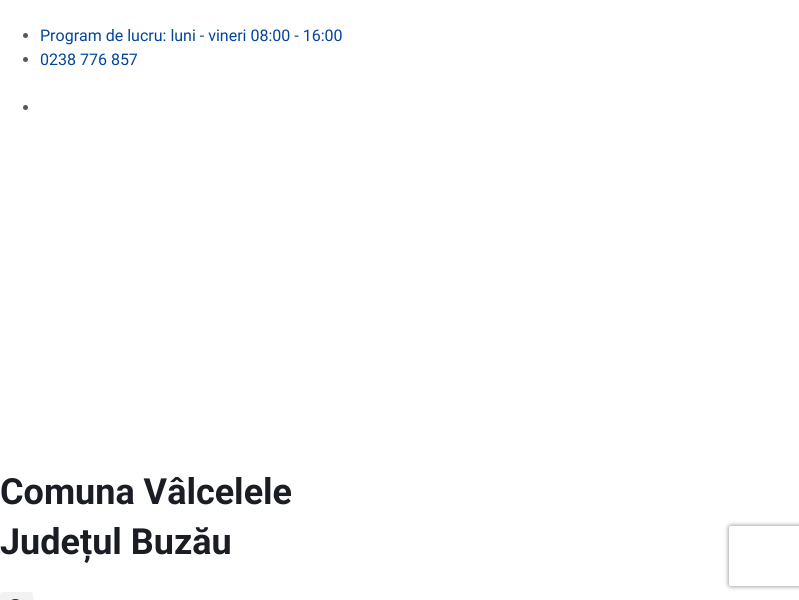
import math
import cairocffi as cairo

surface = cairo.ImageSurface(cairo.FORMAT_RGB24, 799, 600)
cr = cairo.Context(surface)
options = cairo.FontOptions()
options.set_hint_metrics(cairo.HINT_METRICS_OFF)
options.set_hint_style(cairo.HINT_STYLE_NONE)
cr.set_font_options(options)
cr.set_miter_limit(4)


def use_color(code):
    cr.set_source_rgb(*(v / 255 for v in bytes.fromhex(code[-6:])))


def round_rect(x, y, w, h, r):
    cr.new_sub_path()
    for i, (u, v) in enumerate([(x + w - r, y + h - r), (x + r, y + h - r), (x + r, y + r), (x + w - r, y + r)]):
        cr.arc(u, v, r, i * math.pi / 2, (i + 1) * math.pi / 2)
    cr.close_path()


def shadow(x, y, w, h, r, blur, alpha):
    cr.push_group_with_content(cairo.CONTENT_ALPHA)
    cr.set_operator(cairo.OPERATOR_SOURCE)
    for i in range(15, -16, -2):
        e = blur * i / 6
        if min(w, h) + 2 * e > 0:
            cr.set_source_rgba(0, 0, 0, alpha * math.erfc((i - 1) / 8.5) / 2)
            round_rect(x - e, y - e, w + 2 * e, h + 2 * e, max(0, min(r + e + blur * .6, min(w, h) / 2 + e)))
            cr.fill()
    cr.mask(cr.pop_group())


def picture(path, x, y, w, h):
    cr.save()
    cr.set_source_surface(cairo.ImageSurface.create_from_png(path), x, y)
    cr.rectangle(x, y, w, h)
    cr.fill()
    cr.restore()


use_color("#ffffff")
cr.paint()
use_color("#58575e")
cr.arc(25.5, 35.5, 2.5, 0, 2 * math.pi)
cr.fill()
cr.select_font_face("Roboto")
cr.set_font_size(16)
use_color("#02459a")
cr.move_to(40, 41)
cr.show_text("Program de lucru: luni - vineri 08:00 - 16:00")
use_color("#58575e")
cr.new_path()
cr.arc(25.5, 59.5, 2.5, 0, 2 * math.pi)
cr.fill()
use_color("#02459a")
cr.move_to(40, 65)
cr.show_text("0238 776 857")
use_color("#58575e")
cr.new_path()
cr.arc(25.5, 107.5, 2.5, 0, 2 * math.pi)
cr.fill()
cr.select_font_face("Roboto", cairo.FONT_SLANT_NORMAL, cairo.FONT_WEIGHT_BOLD)
cr.set_font_size(36)
use_color("#1a1e24")
cr.move_to(0, 504)
cr.show_text("Comuna Vâlcelele")
cr.move_to(0, 554)
cr.show_text("Județul Buzău")
use_color("#f2f2f2")
round_rect(0, 592, 33, 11, 3)
cr.fill()
picture("img1.png", 11, 599, 8, 1)
cr.save()
cr.set_fill_rule(cairo.FILL_RULE_EVEN_ODD)
cr.new_path()
cr.move_to(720, 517)
cr.line_to(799, 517)
cr.line_to(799, 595)
cr.line_to(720, 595)
cr.close_path()
cr.move_to(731, 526)
cr.line_to(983, 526)
cr.curve_to(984, 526, 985, 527, 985, 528)
cr.line_to(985, 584)
cr.curve_to(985, 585, 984, 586, 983, 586)
cr.line_to(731, 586)
cr.curve_to(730, 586, 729, 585, 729, 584)
cr.line_to(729, 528)
cr.curve_to(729, 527, 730, 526, 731, 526)
cr.close_path()
cr.clip()
use_color("#808080")
shadow(729, 526, 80, 60, 2, 2.5, 1)
cr.restore()
surface.write_to_png("result.png")
